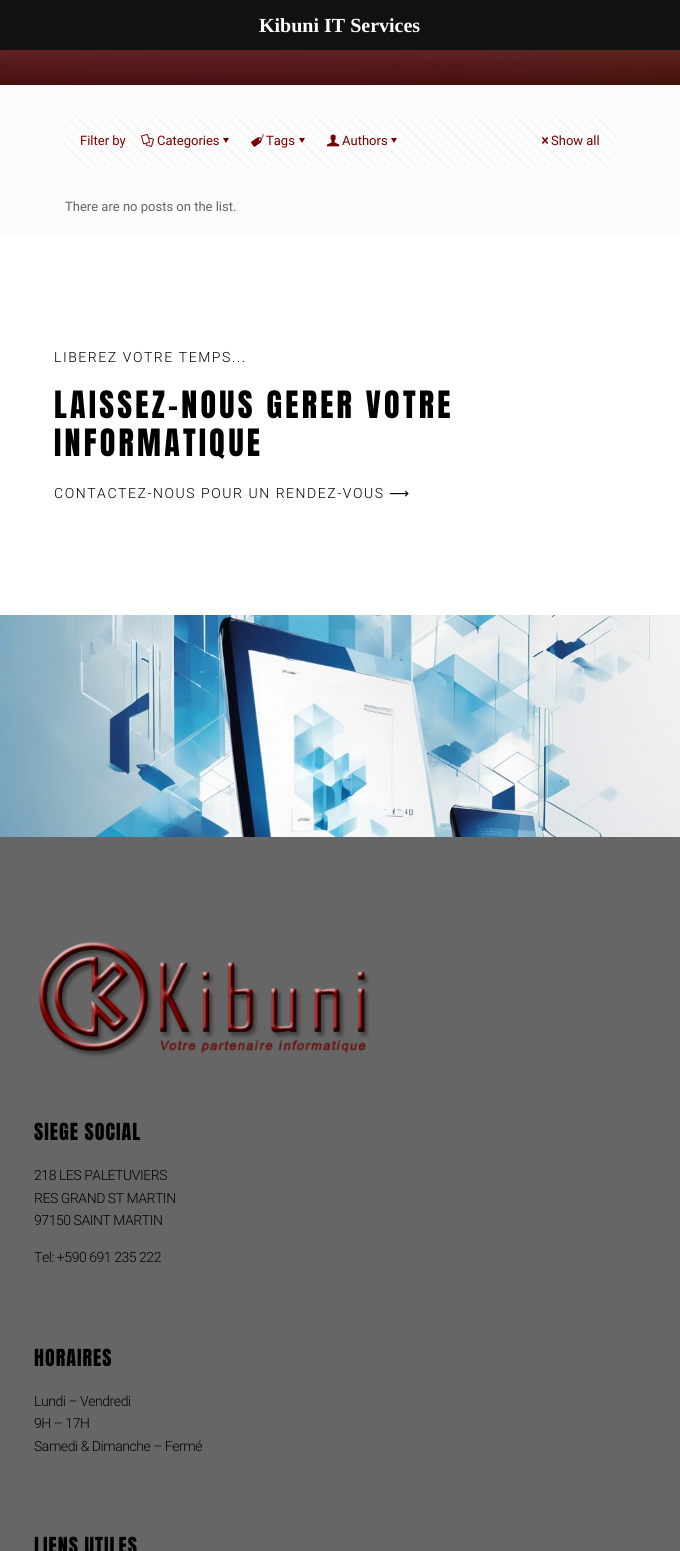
import math
import cairocffi as cairo

surface = cairo.ImageSurface(cairo.FORMAT_RGB24, 680, 1551)
cr = cairo.Context(surface)
options = cairo.FontOptions()
options.set_hint_metrics(cairo.HINT_METRICS_OFF)
options.set_hint_style(cairo.HINT_STYLE_NONE)
cr.set_font_options(options)
cr.set_miter_limit(4)


def use_color(code):
    cr.set_source_rgb(*(v / 255 for v in bytes.fromhex(code[-6:])))


def spaced_text(x, y, s, letter, word):
    cr.move_to(x, y)
    for ch in s:
        cr.show_text(ch)
        cr.rel_move_to(letter + word * (ch == ' '), 0)


def picture(path, x, y, w, h):
    cr.save()
    cr.set_source_surface(cairo.ImageSurface.create_from_png(path), x, y)
    cr.rectangle(x, y, w, h)
    cr.fill()
    cr.restore()


use_color("#ffffff")
cr.paint()
picture("img1.png", 0, 50, 680, 35)
use_color("#111111")
cr.rectangle(0, 0, 680, 50)
cr.fill()
cr.select_font_face("Liberation Serif", cairo.FONT_SLANT_NORMAL, cairo.FONT_WEIGHT_BOLD)
cr.set_font_size(20)
use_color("#ffffff")
cr.move_to(259, 32)
cr.show_text("Kibuni IT Services")
use_color("#fcfcfc")
cr.rectangle(0, 85, 680, 152)
cr.fill()
picture("img2.png", 65, 115, 550, 51)
cr.select_font_face("Roboto")
cr.set_font_size(13)
use_color("#880000")
cr.move_to(80, 145)
cr.show_text("Filter by")
picture("img3.png", 141, 134, 13, 13)
use_color("#770000")
cr.move_to(157, 145)
cr.show_text("Categories")
cr.new_path()
cr.move_to(229, 138)
cr.line_to(226, 143)
cr.line_to(223, 138)
cr.close_path()
cr.fill()
picture("img4.png", 251, 134, 13, 13)
cr.move_to(266, 145)
cr.show_text("Tags")
cr.new_path()
cr.move_to(305, 138)
cr.line_to(302, 143)
cr.line_to(299, 138)
cr.close_path()
cr.fill()
picture("img5.png", 327, 134, 13, 13)
cr.move_to(342, 145)
cr.show_text("Authors")
cr.new_path()
cr.move_to(397, 138)
cr.line_to(394, 143)
cr.line_to(391, 138)
cr.close_path()
cr.fill()
picture("img6.png", 542, 137, 7, 7)
cr.move_to(551, 145)
cr.show_text("Show all")
use_color("#626262")
cr.move_to(65, 211)
cr.show_text("There are no posts on the list.")
cr.select_font_face("Roboto Light")
cr.set_font_size(14)
use_color("#000000")
spaced_text(54, 362, "LIBEREZ VOTRE TEMPS...", 1.55, 0)
cr.select_font_face("Anton")
cr.set_font_size(32)
spaced_text(54, 418, "LAISSEZ-NOUS GERER VOTRE", 3.25, 0)
spaced_text(54, 456, "INFORMATIQUE", 3.25, 0)
cr.select_font_face("Roboto Light")
cr.set_font_size(14)
spaced_text(54, 498, "CONTACTEZ-NOUS POUR UN RENDEZ-VOUS", 1.55, 0)
cr.select_font_face("DejaVu Sans")
spaced_text(389, 498, "⟶", 1.55, 0)
picture("img7.png", 0, 615, 680, 222)
use_color("#666666")
cr.rectangle(0, 837, 680, 714)
cr.fill()
picture("img8.png", 39, 942, 331, 115)
cr.select_font_face("Anton")
cr.set_font_size(20)
use_color("#000000")
spaced_text(34, 1140, "SIEGE SOCIAL", 1, 0)
cr.select_font_face("Roboto Light")
cr.set_font_size(14)
spaced_text(34, 1180, "218 LES PALETUVIERS", -0.45, 0)
spaced_text(34, 1203, "RES GRAND ST MARTIN", -0.45, 0)
spaced_text(34, 1225, "97150 SAINT MARTIN", -0.45, 0)
spaced_text(34, 1262, "Tel: +590 691 235 222", -0.45, 0)
cr.select_font_face("Anton")
cr.set_font_size(20)
spaced_text(34, 1366, "HORAIRES", 1, 0)
cr.select_font_face("Roboto Light")
cr.set_font_size(14)
spaced_text(34, 1406, "Lundi – Vendredi", -0.45, 0)
spaced_text(34, 1428, "9H – 17H", -0.45, 0)
spaced_text(34, 1451, "Samedi & Dimanche – Fermé", -0.45, 0)
cr.select_font_face("Anton")
cr.set_font_size(20)
spaced_text(34, 1554, "LIENS UTILES", 1, 0)
surface.write_to_png("result.png")
